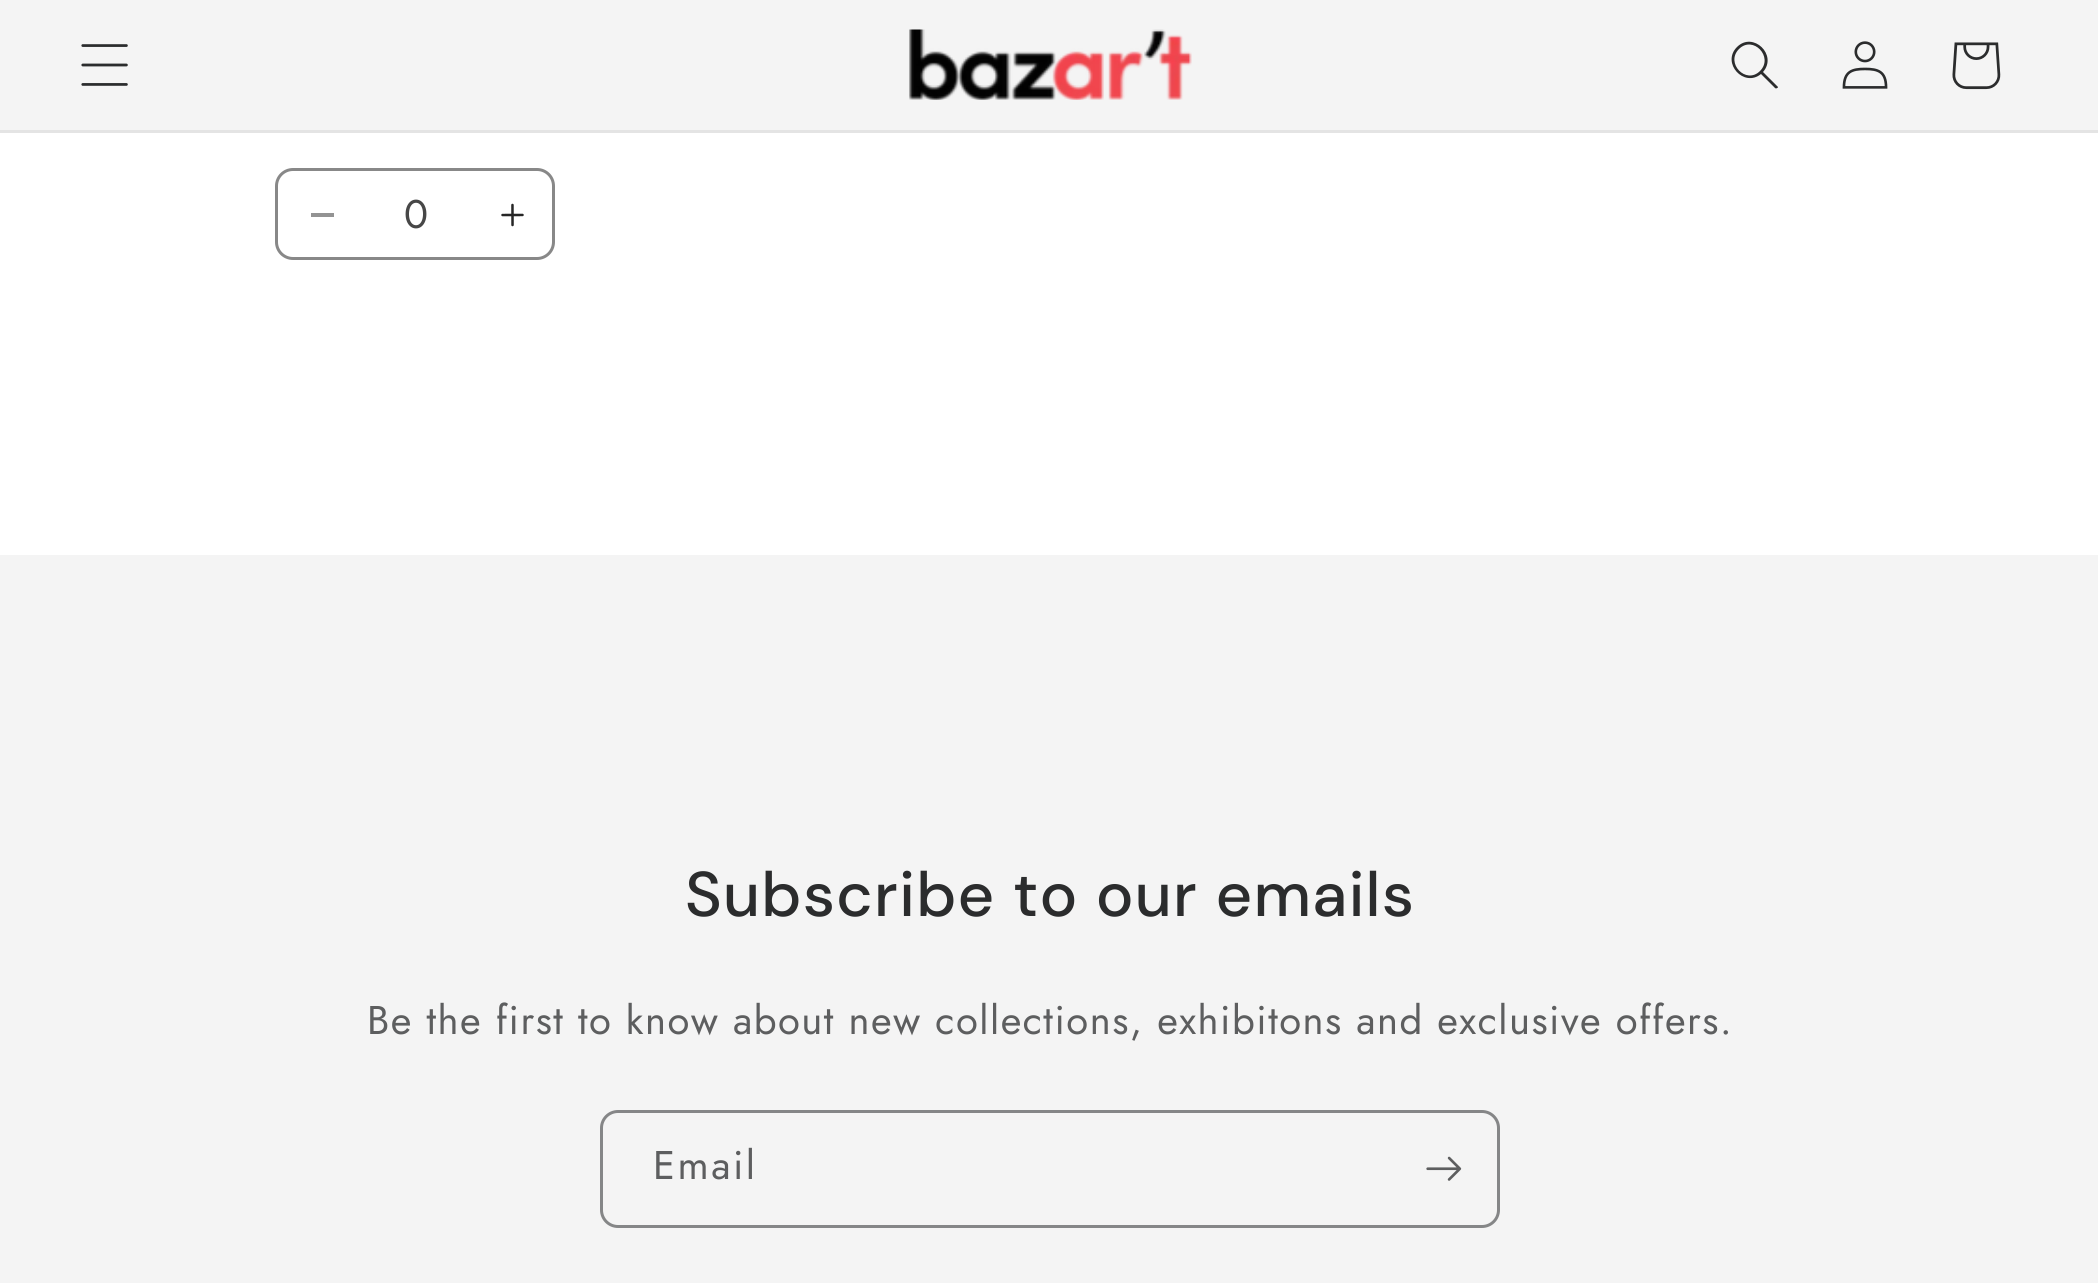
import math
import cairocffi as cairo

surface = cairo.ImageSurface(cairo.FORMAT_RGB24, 2098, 1283)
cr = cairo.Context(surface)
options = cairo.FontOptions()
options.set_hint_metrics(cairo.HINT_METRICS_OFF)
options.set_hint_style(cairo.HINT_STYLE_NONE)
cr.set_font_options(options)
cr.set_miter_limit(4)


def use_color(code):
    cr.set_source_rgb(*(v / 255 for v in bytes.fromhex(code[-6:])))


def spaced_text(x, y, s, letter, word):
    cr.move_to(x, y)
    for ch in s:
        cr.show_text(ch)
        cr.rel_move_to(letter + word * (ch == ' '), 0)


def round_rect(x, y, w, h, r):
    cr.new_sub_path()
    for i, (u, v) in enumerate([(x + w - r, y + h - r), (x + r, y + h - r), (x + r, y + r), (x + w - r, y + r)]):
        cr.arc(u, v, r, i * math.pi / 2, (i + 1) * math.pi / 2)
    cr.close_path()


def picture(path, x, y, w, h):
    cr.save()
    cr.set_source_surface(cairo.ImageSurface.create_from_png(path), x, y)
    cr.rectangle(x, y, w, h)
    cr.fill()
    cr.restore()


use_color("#f4f4f4")
cr.paint()
use_color("#e4e4e4")
cr.rectangle(0, 130, 2098, 3)
cr.fill()
picture("img1.png", 81, 44, 47, 42)
picture("img2.png", 909, 29, 283, 71)
use_color("#2b2c2d")
cr.set_fill_rule(cairo.FILL_RULE_EVEN_ODD)
cr.new_path()
cr.move_to(1760, 71)
cr.curve_to(1746, 85, 1725, 63, 1739, 49)
cr.curve_to(1753, 35, 1774, 57, 1760, 71)
cr.move_to(1761, 74)
cr.curve_to(1744, 88, 1721, 63, 1737, 47)
cr.curve_to(1753, 31, 1778, 55, 1763, 72)
cr.line_to(1778, 87)
cr.curve_to(1778, 88, 1776, 89, 1775, 88)
cr.close_path()
cr.fill()
picture("img3.png", 1842, 41, 46, 48)
picture("img4.png", 1952, 42, 49, 48)
use_color("#ffffff")
cr.rectangle(0, 133, 2098, 422)
cr.fill()
use_color("#939393")
cr.rectangle(311, 213, 23, 4)
cr.fill()
picture("img5.png", 501, 203, 23, 24)
round_rect(276.5, 169.5, 277, 89, 16.5)
use_color("#888888")
cr.set_line_width(3)
cr.stroke()
cr.select_font_face("Jost")
cr.set_font_size(40)
use_color("#474747")
cr.move_to(404, 228)
cr.show_text("0")
cr.select_font_face("DM Sans Medium")
cr.set_font_size(63)
use_color("#2b2c2d")
spaced_text(685, 916, "Subscribe to our emails", 1.6, 0)
cr.select_font_face("Jost")
cr.set_font_size(40)
use_color("#5d5e5f")
spaced_text(367, 1034, "Be the first to know about new collections, exhibitons and exclusive offers.", 1.5, 0)
round_rect(601.5, 1111.5, 897, 115, 16.5)
use_color("#858687")
cr.stroke()
use_color("#5d5e5f")
spaced_text(653, 1179, "Email", 2.5, 0)
picture("img6.png", 1426, 1156, 36, 25)
surface.write_to_png("result.png")
